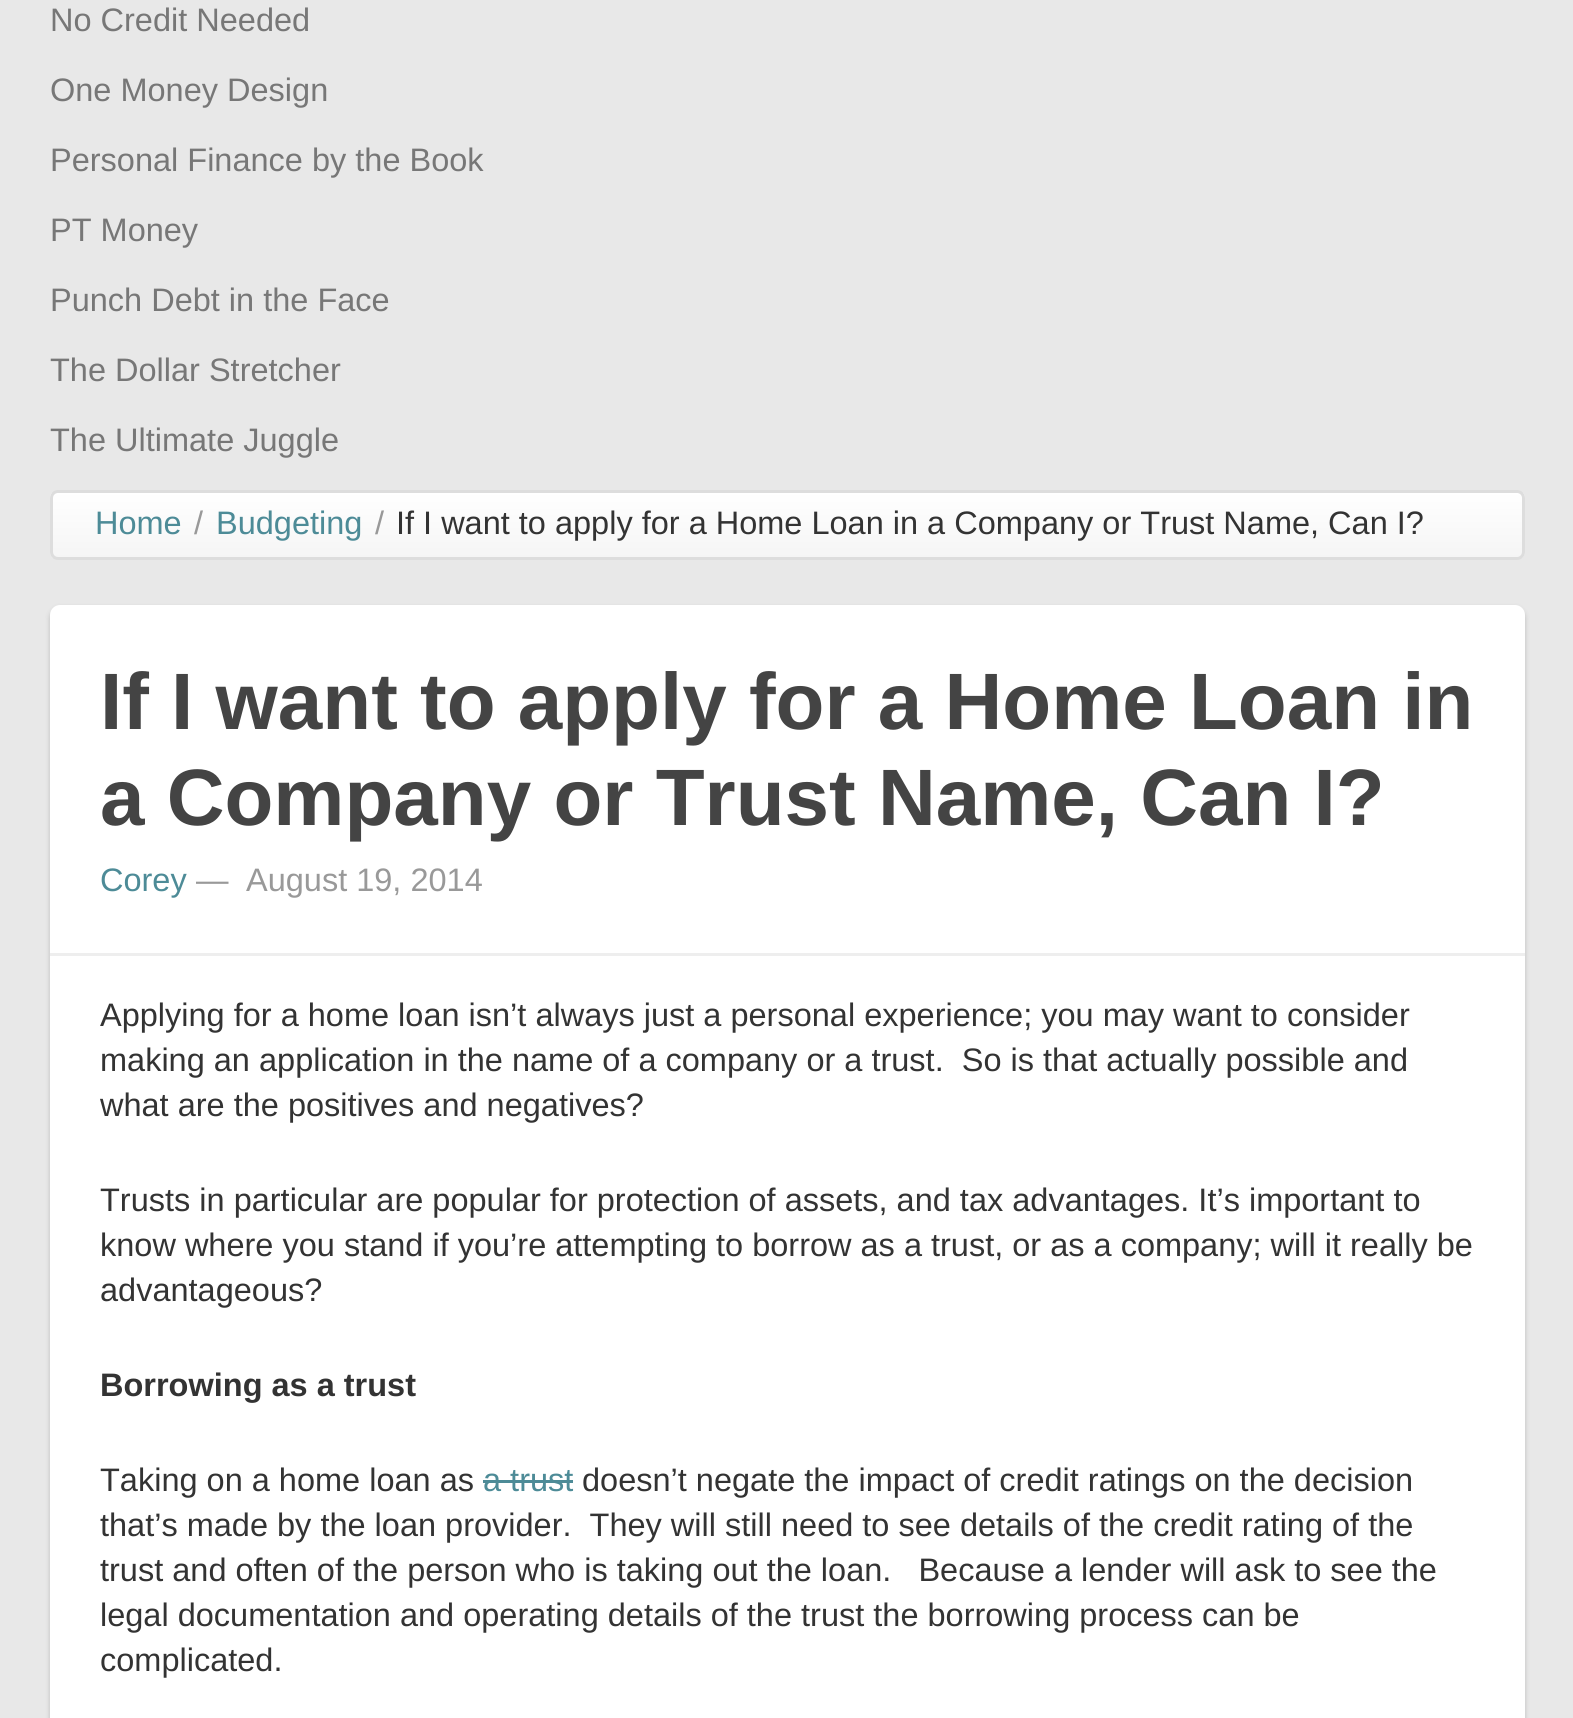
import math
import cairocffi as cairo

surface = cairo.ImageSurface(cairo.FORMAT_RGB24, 1573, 1718)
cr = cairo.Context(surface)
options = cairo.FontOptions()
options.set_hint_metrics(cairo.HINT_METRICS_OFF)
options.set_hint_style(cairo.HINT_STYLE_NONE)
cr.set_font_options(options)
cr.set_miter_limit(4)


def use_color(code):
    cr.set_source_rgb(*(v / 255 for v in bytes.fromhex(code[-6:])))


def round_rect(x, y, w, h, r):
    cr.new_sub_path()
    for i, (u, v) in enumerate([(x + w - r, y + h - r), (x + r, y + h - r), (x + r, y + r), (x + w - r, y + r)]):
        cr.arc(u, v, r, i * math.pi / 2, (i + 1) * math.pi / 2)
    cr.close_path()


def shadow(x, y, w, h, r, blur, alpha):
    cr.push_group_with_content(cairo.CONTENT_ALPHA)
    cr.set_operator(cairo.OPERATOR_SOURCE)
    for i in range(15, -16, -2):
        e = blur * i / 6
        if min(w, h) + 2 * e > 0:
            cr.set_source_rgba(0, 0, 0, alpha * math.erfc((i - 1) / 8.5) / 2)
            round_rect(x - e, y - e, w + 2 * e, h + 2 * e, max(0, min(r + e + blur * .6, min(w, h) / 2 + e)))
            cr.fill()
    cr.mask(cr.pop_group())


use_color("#e8e8e8")
cr.paint()
cr.select_font_face("Liberation Sans")
cr.set_font_size(32.5)
use_color("#777777")
cr.move_to(50, 31)
cr.show_text("No Credit Needed")
cr.move_to(50, 101)
cr.show_text("One Money Design")
cr.move_to(50, 171)
cr.show_text("Personal Finance by the Book")
cr.move_to(50, 241)
cr.show_text("PT Money")
cr.move_to(50, 311)
cr.show_text("Punch Debt in the Face")
cr.move_to(50, 381)
cr.show_text("The Dollar Stretcher")
cr.move_to(50, 451)
cr.show_text("The Ultimate Juggle")
cr.save()
round_rect(50, 490, 1475, 70, 8)
cr.clip()
gradient = cairo.LinearGradient(788, 492, 788, 558)
gradient.add_color_stop_rgba(0, 1, 1, 1, 1)
gradient.add_color_stop_rgba(1, 0.961, 0.961, 0.961, 1)
cr.set_source(gradient)
cr.rectangle(50, 493, 1475, 65)
cr.fill()
cr.restore()
use_color("#ffffff")
cr.new_path()
cr.move_to(58, 495)
cr.line_to(1518, 495)
cr.curve_to(1520, 495, 1522, 497, 1522, 500)
cr.line_to(1522, 556)
cr.curve_to(1523, 555, 1523, 554, 1523, 553)
cr.line_to(1523, 498)
cr.curve_to(1523, 495, 1521, 493, 1518, 493)
cr.line_to(58, 493)
cr.curve_to(56, 493, 53, 495, 53, 497)
cr.curve_to(54, 496, 56, 495, 58, 495)
cr.close_path()
cr.fill()
round_rect(51.5, 491.5, 1472, 67, 6.5)
use_color("#dddddd")
cr.set_line_width(3)
cr.stroke()
use_color("#4d8b97")
cr.move_to(95, 534)
cr.show_text("Home")
use_color("#999999")
cr.move_to(194, 534)
cr.show_text("/")
use_color("#4d8b97")
cr.move_to(216, 534)
cr.show_text("Budgeting")
use_color("#999999")
cr.move_to(375, 534)
cr.show_text("/")
use_color("#333333")
cr.move_to(396, 534)
cr.show_text("If I want to apply for a Home Loan in a Company or Trust Name, Can I?")
use_color("#000000")
shadow(50, 608, 1475, 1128, 10, 2.5, 0.2)
use_color("#ffffff")
round_rect(50, 605, 1475, 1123, 10)
cr.fill()
use_color("#eeeeee")
cr.rectangle(50, 953, 1475, 3)
cr.fill()
cr.select_font_face("Liberation Sans", cairo.FONT_SLANT_NORMAL, cairo.FONT_WEIGHT_BOLD)
cr.set_font_size(80)
use_color("#444444")
cr.move_to(100, 729)
cr.show_text("If I want to apply for a Home Loan in")
cr.move_to(100, 825)
cr.show_text("a Company or Trust Name, Can I?")
cr.select_font_face("Liberation Sans")
cr.set_font_size(32.5)
use_color("#4d8b97")
cr.move_to(100, 891)
cr.show_text("Corey")
use_color("#999999")
cr.move_to(196, 891)
cr.show_text("—")
cr.move_to(246, 891)
cr.show_text("August 19, 2014")
use_color("#333333")
cr.move_to(100, 1026)
cr.show_text("Applying for a home loan isn’t always just a personal experience; you may want to consider")
cr.move_to(100, 1071)
cr.show_text("making an application in the name of a company or a trust.  So is that actually possible and")
cr.move_to(100, 1116)
cr.show_text("what are the positives and negatives?")
cr.move_to(100, 1211)
cr.show_text("Trusts in particular are popular for protection of assets, and tax advantages. It’s important to")
cr.move_to(100, 1256)
cr.show_text("know where you stand if you’re attempting to borrow as a trust, or as a company; will it really be")
cr.move_to(100, 1301)
cr.show_text("advantageous?")
cr.select_font_face("Liberation Sans", cairo.FONT_SLANT_NORMAL, cairo.FONT_WEIGHT_BOLD)
cr.move_to(100, 1396)
cr.show_text("Borrowing as a trust")
cr.select_font_face("Liberation Sans")
cr.move_to(100, 1491)
cr.show_text("Taking on a home loan as")
use_color("#4d8b97")
cr.move_to(483, 1491)
cr.show_text("a trust")
cr.rectangle(483, 1480, 90, 3)
cr.fill()
use_color("#333333")
cr.move_to(582, 1491)
cr.show_text("doesn’t negate the impact of credit ratings on the decision")
cr.move_to(100, 1536)
cr.show_text("that’s made by the loan provider.  They will still need to see details of the credit rating of the")
cr.move_to(100, 1581)
cr.show_text("trust and often of the person who is taking out the loan.   Because a lender will ask to see the")
cr.move_to(100, 1626)
cr.show_text("legal documentation and operating details of the trust the borrowing process can be")
cr.move_to(100, 1671)
cr.show_text("complicated.")
surface.write_to_png("result.png")
